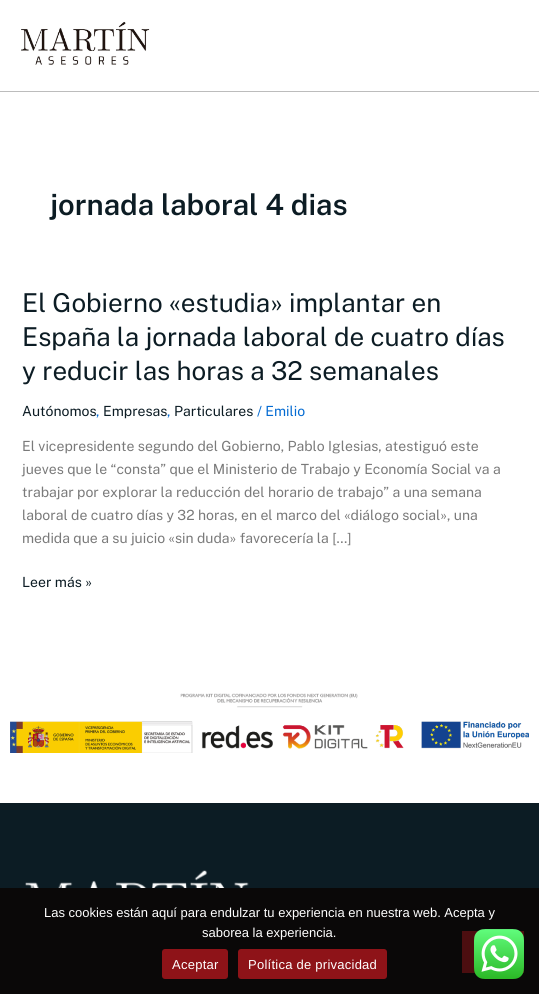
import math
import cairocffi as cairo

surface = cairo.ImageSurface(cairo.FORMAT_RGB24, 539, 994)
cr = cairo.Context(surface)
options = cairo.FontOptions()
options.set_hint_metrics(cairo.HINT_METRICS_OFF)
options.set_hint_style(cairo.HINT_STYLE_NONE)
cr.set_font_options(options)
cr.set_miter_limit(4)


def use_color(code):
    cr.set_source_rgb(*(v / 255 for v in bytes.fromhex(code[-6:])))


def spaced_text(x, y, s, letter, word):
    cr.move_to(x, y)
    for ch in s:
        cr.show_text(ch)
        cr.rel_move_to(letter + word * (ch == ' '), 0)


def round_rect(x, y, w, h, r):
    cr.new_sub_path()
    for i, (u, v) in enumerate([(x + w - r, y + h - r), (x + r, y + h - r), (x + r, y + r), (x + w - r, y + r)]):
        cr.arc(u, v, r, i * math.pi / 2, (i + 1) * math.pi / 2)
    cr.close_path()


def picture(path, x, y, w, h):
    cr.save()
    cr.set_source_surface(cairo.ImageSurface.create_from_png(path), x, y)
    cr.rectangle(x, y, w, h)
    cr.fill()
    cr.restore()


use_color("#ffffff")
cr.paint()
use_color("#bcbcbc")
cr.rectangle(0, 91, 539, 1)
cr.fill()
picture("img1.png", 21, 21, 129, 44)
cr.select_font_face("Public Sans SemiBold")
cr.set_font_size(29.25)
use_color("#0c1c24")
cr.move_to(50, 215)
cr.show_text("jornada laboral 4 dias")
cr.select_font_face("Public Sans")
cr.set_font_size(26)
cr.move_to(22, 312)
cr.show_text("El Gobierno «estudia» implantar en")
cr.move_to(22, 346)
cr.show_text("España la jornada laboral de cuatro días")
cr.move_to(22, 380)
cr.show_text("y reducir las horas a 32 semanales")
cr.set_font_size(14)
cr.move_to(22, 416)
cr.show_text("Autónomos")
use_color("#046bd2")
cr.move_to(96, 416)
cr.show_text(",")
use_color("#0c1c24")
cr.move_to(103, 416)
cr.show_text("Empresas")
use_color("#046bd2")
cr.move_to(167, 416)
cr.show_text(",")
use_color("#0c1c24")
cr.move_to(174, 416)
cr.show_text("Particulares")
use_color("#046bd2")
cr.move_to(257, 416)
cr.show_text("/ Emilio")
use_color("#7a7a7a")
cr.move_to(22, 451)
cr.show_text("El vicepresidente segundo del Gobierno, Pablo Iglesias, atestiguó este")
cr.move_to(22, 474)
cr.show_text("jueves que le “consta” que el Ministerio de Trabajo y Economía Social va a")
cr.move_to(22, 497)
cr.show_text("trabajar por explorar la reducción del horario de trabajo” a una semana")
cr.move_to(22, 520)
cr.show_text("laboral de cuatro días y 32 horas, en el marco del «diálogo social», una")
cr.move_to(22, 543)
cr.show_text("medida que a su juicio «sin duda» favorecería la […]")
use_color("#0c1c24")
cr.move_to(22, 587)
cr.show_text("Leer más »")
picture("img2.png", 10, 693, 519, 60)
cr.rectangle(0, 803, 539, 85)
cr.fill()
picture("img3.png", 25, 870, 224, 18)
use_color("#0a0808")
cr.rectangle(0, 888, 539, 106)
cr.fill()
cr.select_font_face("Liberation Sans")
cr.set_font_size(13)
use_color("#ffffff")
cr.move_to(44, 917)
cr.show_text("Las cookies están aquí para endulzar tu experiencia en nuestra web. Acepta y")
cr.move_to(202, 937)
cr.show_text("saborea la experiencia.")
use_color("#8e1318")
round_rect(162, 949, 66, 30, 3)
cr.fill()
use_color("#ffffff")
spaced_text(172, 969, "Aceptar", 0.25, 0)
use_color("#8e1318")
round_rect(238, 949, 149, 30, 3)
cr.fill()
use_color("#ffffff")
spaced_text(248, 969, "Política de privacidad", 0.25, 0)
use_color("#4c0e10")
cr.rectangle(462, 931, 62, 42)
cr.fill()
picture("img4.png", 474, 929, 50, 50)
surface.write_to_png("result.png")
